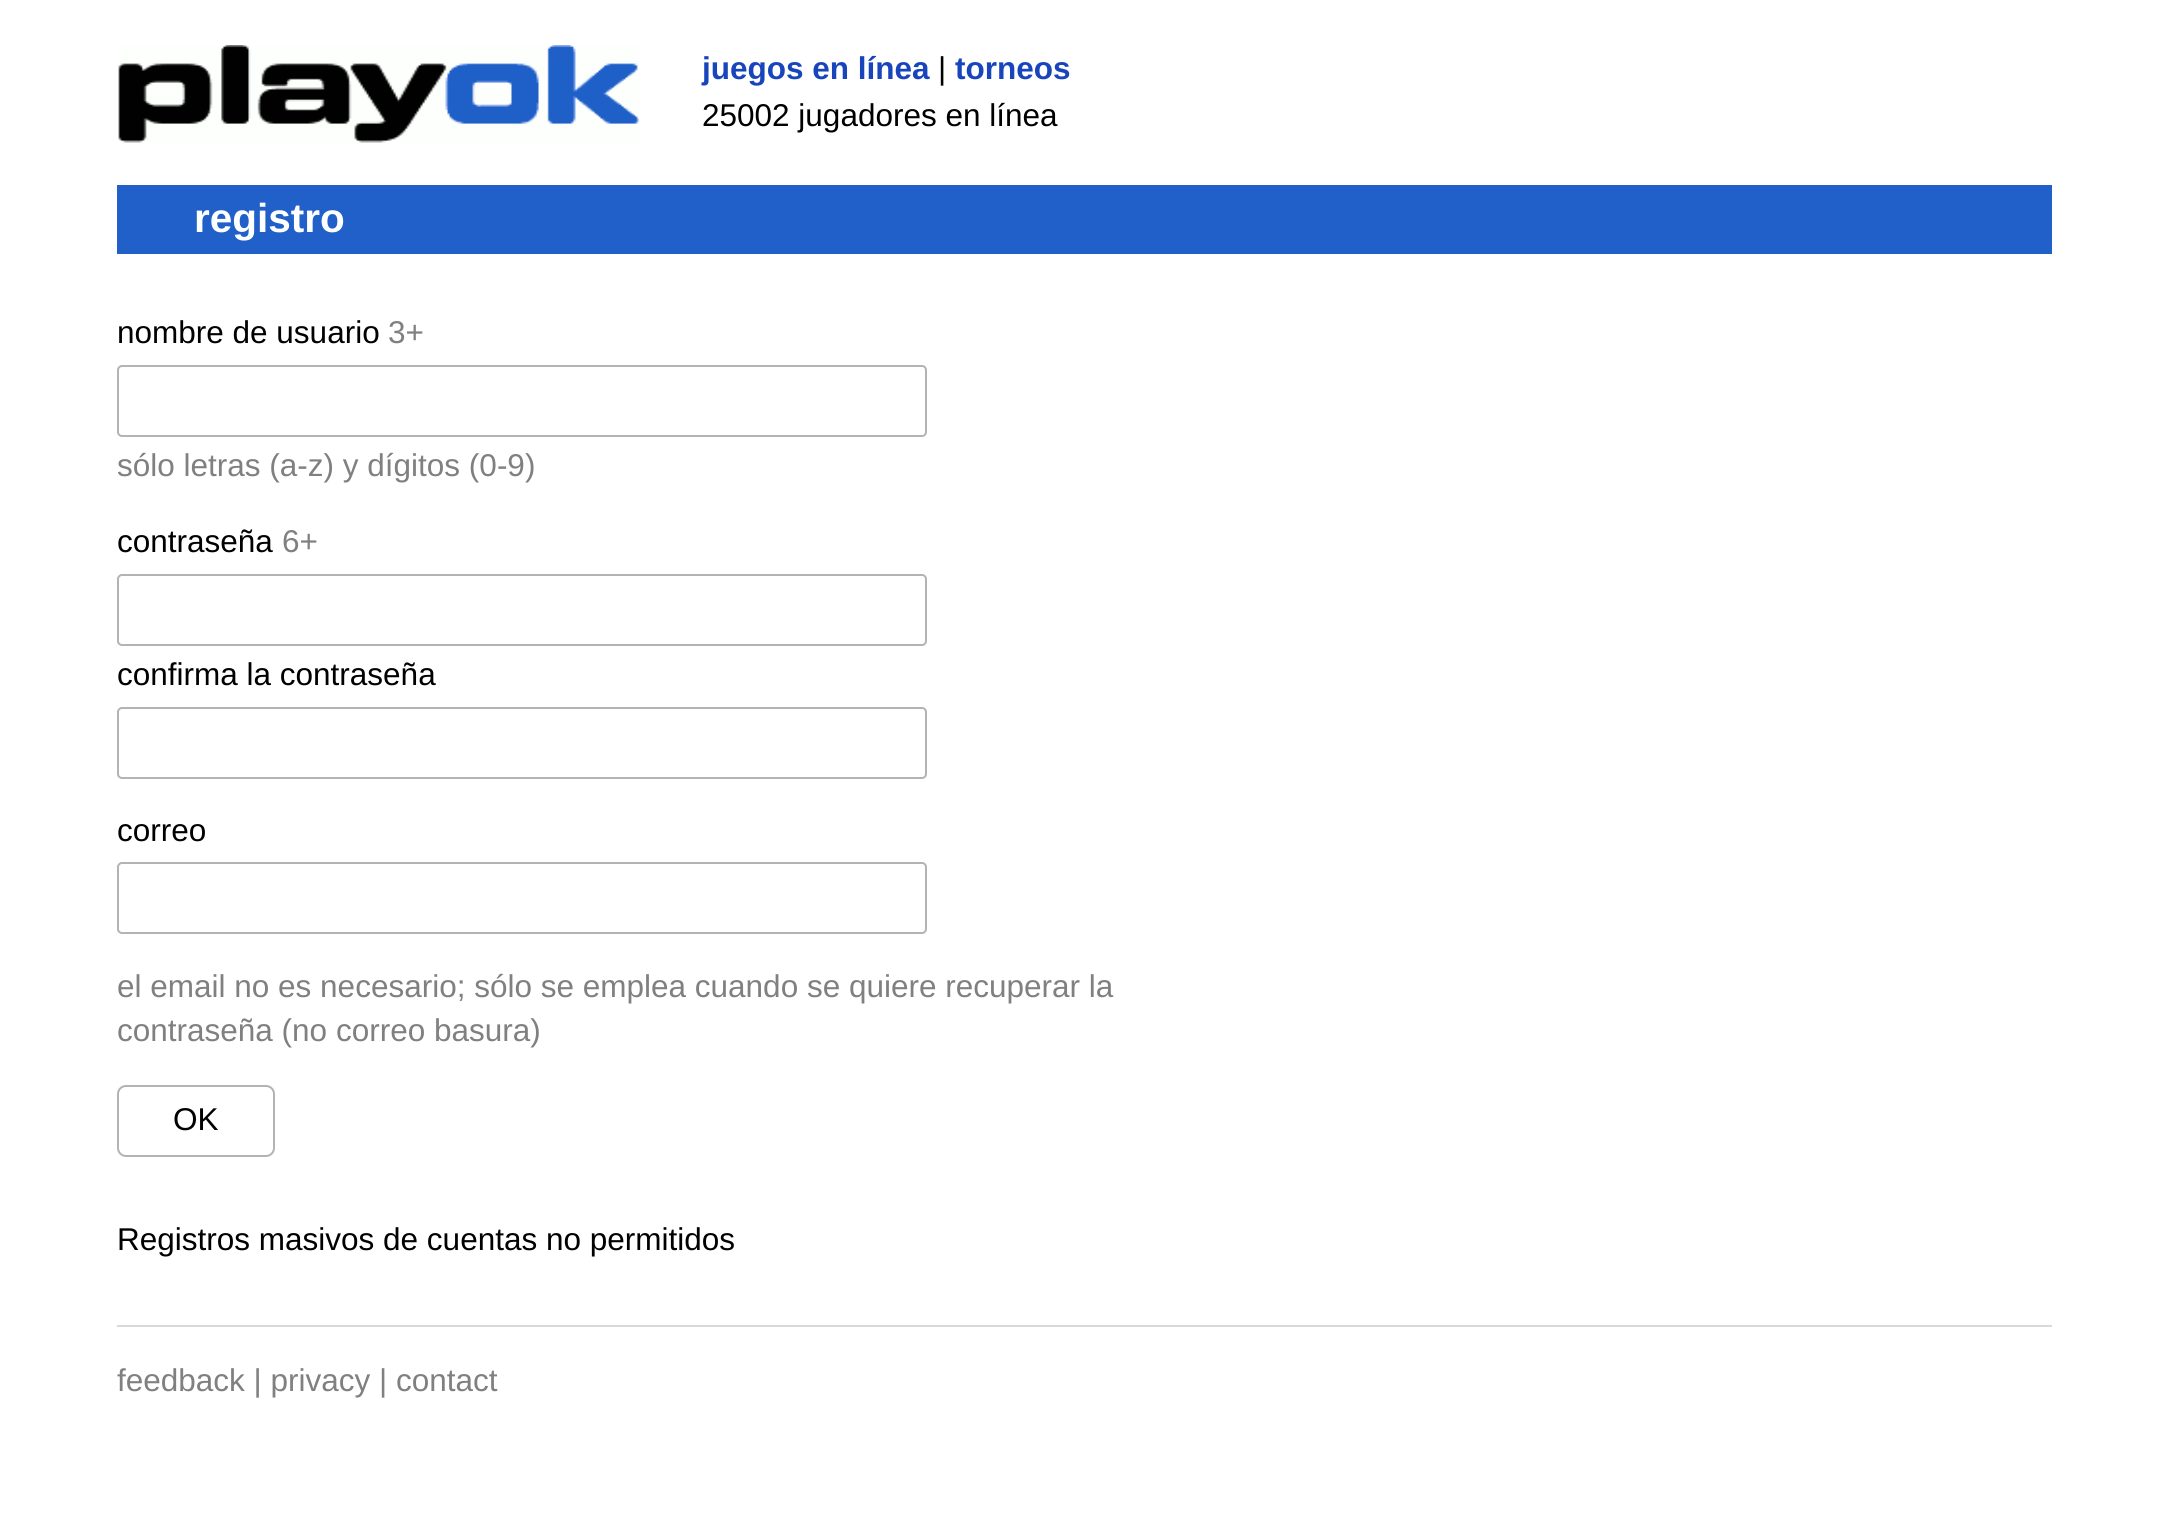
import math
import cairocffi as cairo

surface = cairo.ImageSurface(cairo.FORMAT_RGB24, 2167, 1536)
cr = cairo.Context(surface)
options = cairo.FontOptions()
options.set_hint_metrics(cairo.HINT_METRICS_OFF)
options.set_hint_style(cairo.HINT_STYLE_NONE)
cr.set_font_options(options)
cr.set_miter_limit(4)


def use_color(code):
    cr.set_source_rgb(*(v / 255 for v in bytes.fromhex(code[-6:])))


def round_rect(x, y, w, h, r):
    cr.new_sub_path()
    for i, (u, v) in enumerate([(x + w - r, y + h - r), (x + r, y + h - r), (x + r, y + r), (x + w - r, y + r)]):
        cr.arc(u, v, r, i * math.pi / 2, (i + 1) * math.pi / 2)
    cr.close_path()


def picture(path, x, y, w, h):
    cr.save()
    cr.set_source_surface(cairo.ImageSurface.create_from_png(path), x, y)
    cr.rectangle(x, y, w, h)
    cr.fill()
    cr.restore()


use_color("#ffffff")
cr.paint()
picture("img1.png", 118, 45, 521, 98)
cr.select_font_face("Liberation Sans", cairo.FONT_SLANT_NORMAL, cairo.FONT_WEIGHT_BOLD)
cr.set_font_size(31.5)
use_color("#1844bc")
cr.move_to(702, 79)
cr.show_text("juegos en línea")
cr.select_font_face("Liberation Sans")
use_color("#000000")
cr.move_to(938, 79)
cr.show_text("|")
cr.select_font_face("Liberation Sans", cairo.FONT_SLANT_NORMAL, cairo.FONT_WEIGHT_BOLD)
use_color("#1844bc")
cr.move_to(955, 79)
cr.show_text("torneos")
cr.select_font_face("Liberation Sans")
use_color("#000000")
cr.move_to(702, 126)
cr.show_text("25002 jugadores en línea")
use_color("#2060c8")
cr.rectangle(117, 185, 1935, 69)
cr.fill()
cr.select_font_face("Liberation Sans", cairo.FONT_SLANT_NORMAL, cairo.FONT_WEIGHT_BOLD)
cr.set_font_size(40.5)
use_color("#ffffff")
cr.move_to(194, 232)
cr.show_text("registro")
cr.select_font_face("Liberation Sans")
cr.set_font_size(31.5)
use_color("#000000")
cr.move_to(117, 343)
cr.show_text("nombre de usuario")
use_color("#808080")
cr.move_to(388, 343)
cr.show_text("3+")
round_rect(118, 366, 808, 70, 4)
use_color("#b3b3b3")
cr.stroke()
use_color("#808080")
cr.move_to(117, 476)
cr.show_text("sólo letras (a-z) y dígitos (0-9)")
use_color("#000000")
cr.move_to(117, 552)
cr.show_text("contraseña")
use_color("#808080")
cr.move_to(282, 552)
cr.show_text("6+")
round_rect(118, 575, 808, 70, 4)
use_color("#b3b3b3")
cr.stroke()
use_color("#000000")
cr.move_to(117, 685)
cr.show_text("confirma la contraseña")
round_rect(118, 708, 808, 70, 4)
use_color("#b3b3b3")
cr.stroke()
use_color("#000000")
cr.move_to(117, 841)
cr.show_text("correo")
round_rect(118, 863, 808, 70, 4)
use_color("#b3b3b3")
cr.stroke()
use_color("#808080")
cr.move_to(117, 997)
cr.show_text("el email no es necesario; sólo se emplea cuando se quiere recuperar la")
cr.move_to(117, 1041)
cr.show_text("contraseña (no correo basura)")
round_rect(118, 1086, 156, 70, 8)
use_color("#b3b3b3")
cr.stroke()
use_color("#000000")
cr.move_to(173, 1130)
cr.show_text("OK")
cr.move_to(117, 1250)
cr.show_text("Registros masivos de cuentas no permitidos")
use_color("#d9d9d9")
cr.rectangle(117, 1325, 1935, 2)
cr.fill()
use_color("#808080")
cr.move_to(117, 1391)
cr.show_text("feedback | privacy | contact")
surface.write_to_png("result.png")
